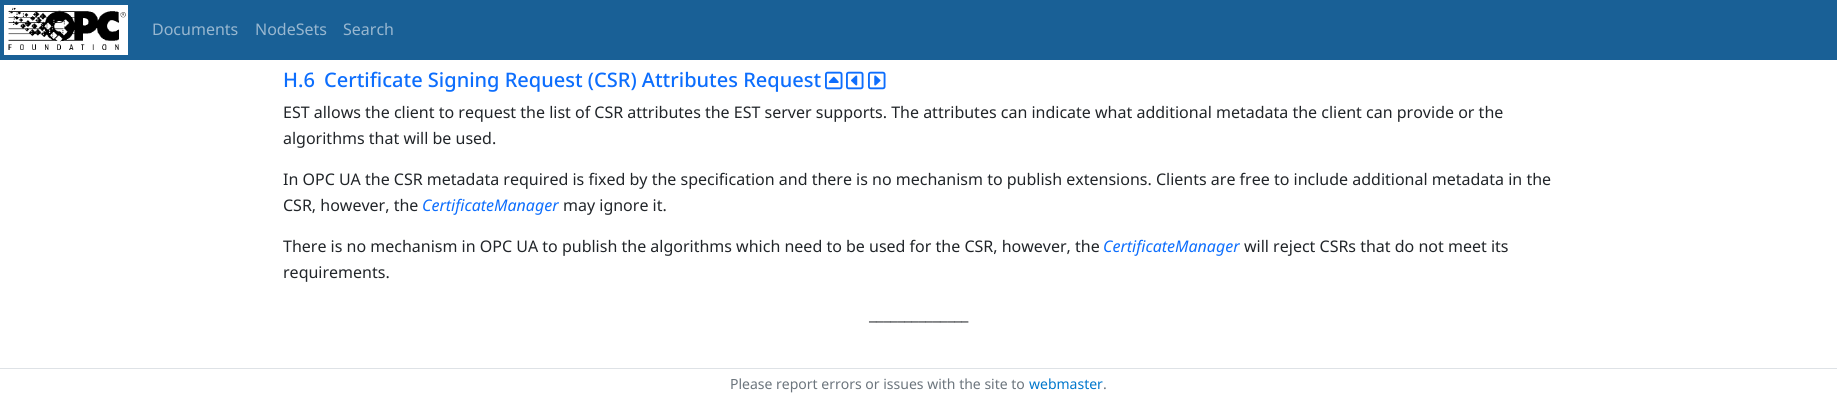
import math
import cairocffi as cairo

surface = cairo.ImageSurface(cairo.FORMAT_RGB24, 1837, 398)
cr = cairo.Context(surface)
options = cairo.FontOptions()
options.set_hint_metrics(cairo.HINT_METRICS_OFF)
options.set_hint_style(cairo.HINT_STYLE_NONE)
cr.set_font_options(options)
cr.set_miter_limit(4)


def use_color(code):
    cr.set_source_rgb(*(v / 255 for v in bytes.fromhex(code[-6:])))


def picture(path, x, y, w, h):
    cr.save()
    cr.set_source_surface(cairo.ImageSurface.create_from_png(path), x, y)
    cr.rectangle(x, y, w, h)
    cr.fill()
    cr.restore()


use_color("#ffffff")
cr.paint()
use_color("#196096")
cr.rectangle(0, 0, 1837, 60)
cr.fill()
picture("img1.png", 4, 5, 124, 50)
cr.select_font_face("Noto Sans")
cr.set_font_size(16)
use_color("#98b7d0")
cr.move_to(152, 35)
cr.show_text("Documents")
cr.move_to(255, 35)
cr.show_text("NodeSets")
cr.move_to(343, 35)
cr.show_text("Search")
cr.select_font_face("Noto Sans Medium")
cr.set_font_size(20)
use_color("#0d6efd")
cr.move_to(283, 87)
cr.show_text("H.6")
cr.move_to(324, 87)
cr.show_text("Certificate Signing Request (CSR) Attributes Request")
picture("img2.png", 825, 71, 18, 19)
picture("img3.png", 846, 71, 18, 19)
picture("img4.png", 868, 71, 18, 19)
cr.select_font_face("Noto Sans")
cr.set_font_size(16)
use_color("#212529")
cr.move_to(283, 118)
cr.show_text("EST allows the client to request the list of CSR attributes the EST server supports. The attributes can indicate what additional metadata the client can provide or the")
cr.move_to(283, 144)
cr.show_text("algorithms that will be used.")
cr.move_to(283, 185)
cr.show_text("In OPC UA the CSR metadata required is fixed by the specification and there is no mechanism to publish extensions. Clients are free to include additional metadata in the")
cr.move_to(283, 211)
cr.show_text("CSR, however, the")
cr.select_font_face("Noto Sans", cairo.FONT_SLANT_ITALIC)
use_color("#0d6efd")
cr.move_to(422, 211)
cr.show_text("CertificateManager")
cr.select_font_face("Noto Sans")
use_color("#212529")
cr.move_to(563, 211)
cr.show_text("may ignore it.")
cr.move_to(283, 252)
cr.show_text("There is no mechanism in OPC UA to publish the algorithms which need to be used for the CSR, however, the")
cr.select_font_face("Noto Sans", cairo.FONT_SLANT_ITALIC)
use_color("#0d6efd")
cr.move_to(1103, 252)
cr.show_text("CertificateManager")
cr.select_font_face("Noto Sans")
use_color("#212529")
cr.move_to(1244, 252)
cr.show_text("will reject CSRs that do not meet its")
cr.move_to(283, 278)
cr.show_text("requirements.")
cr.move_to(869, 320)
cr.show_text("______________")
use_color("#dee2e6")
cr.rectangle(0, 368, 1837, 1)
cr.fill()
cr.set_font_size(14)
use_color("#6c757d")
cr.move_to(730, 389)
cr.show_text("Please report errors or issues with the site to")
use_color("#0077cc")
cr.move_to(1029, 389)
cr.show_text("webmaster")
use_color("#6c757d")
cr.move_to(1103, 389)
cr.show_text(".")
surface.write_to_png("result.png")
